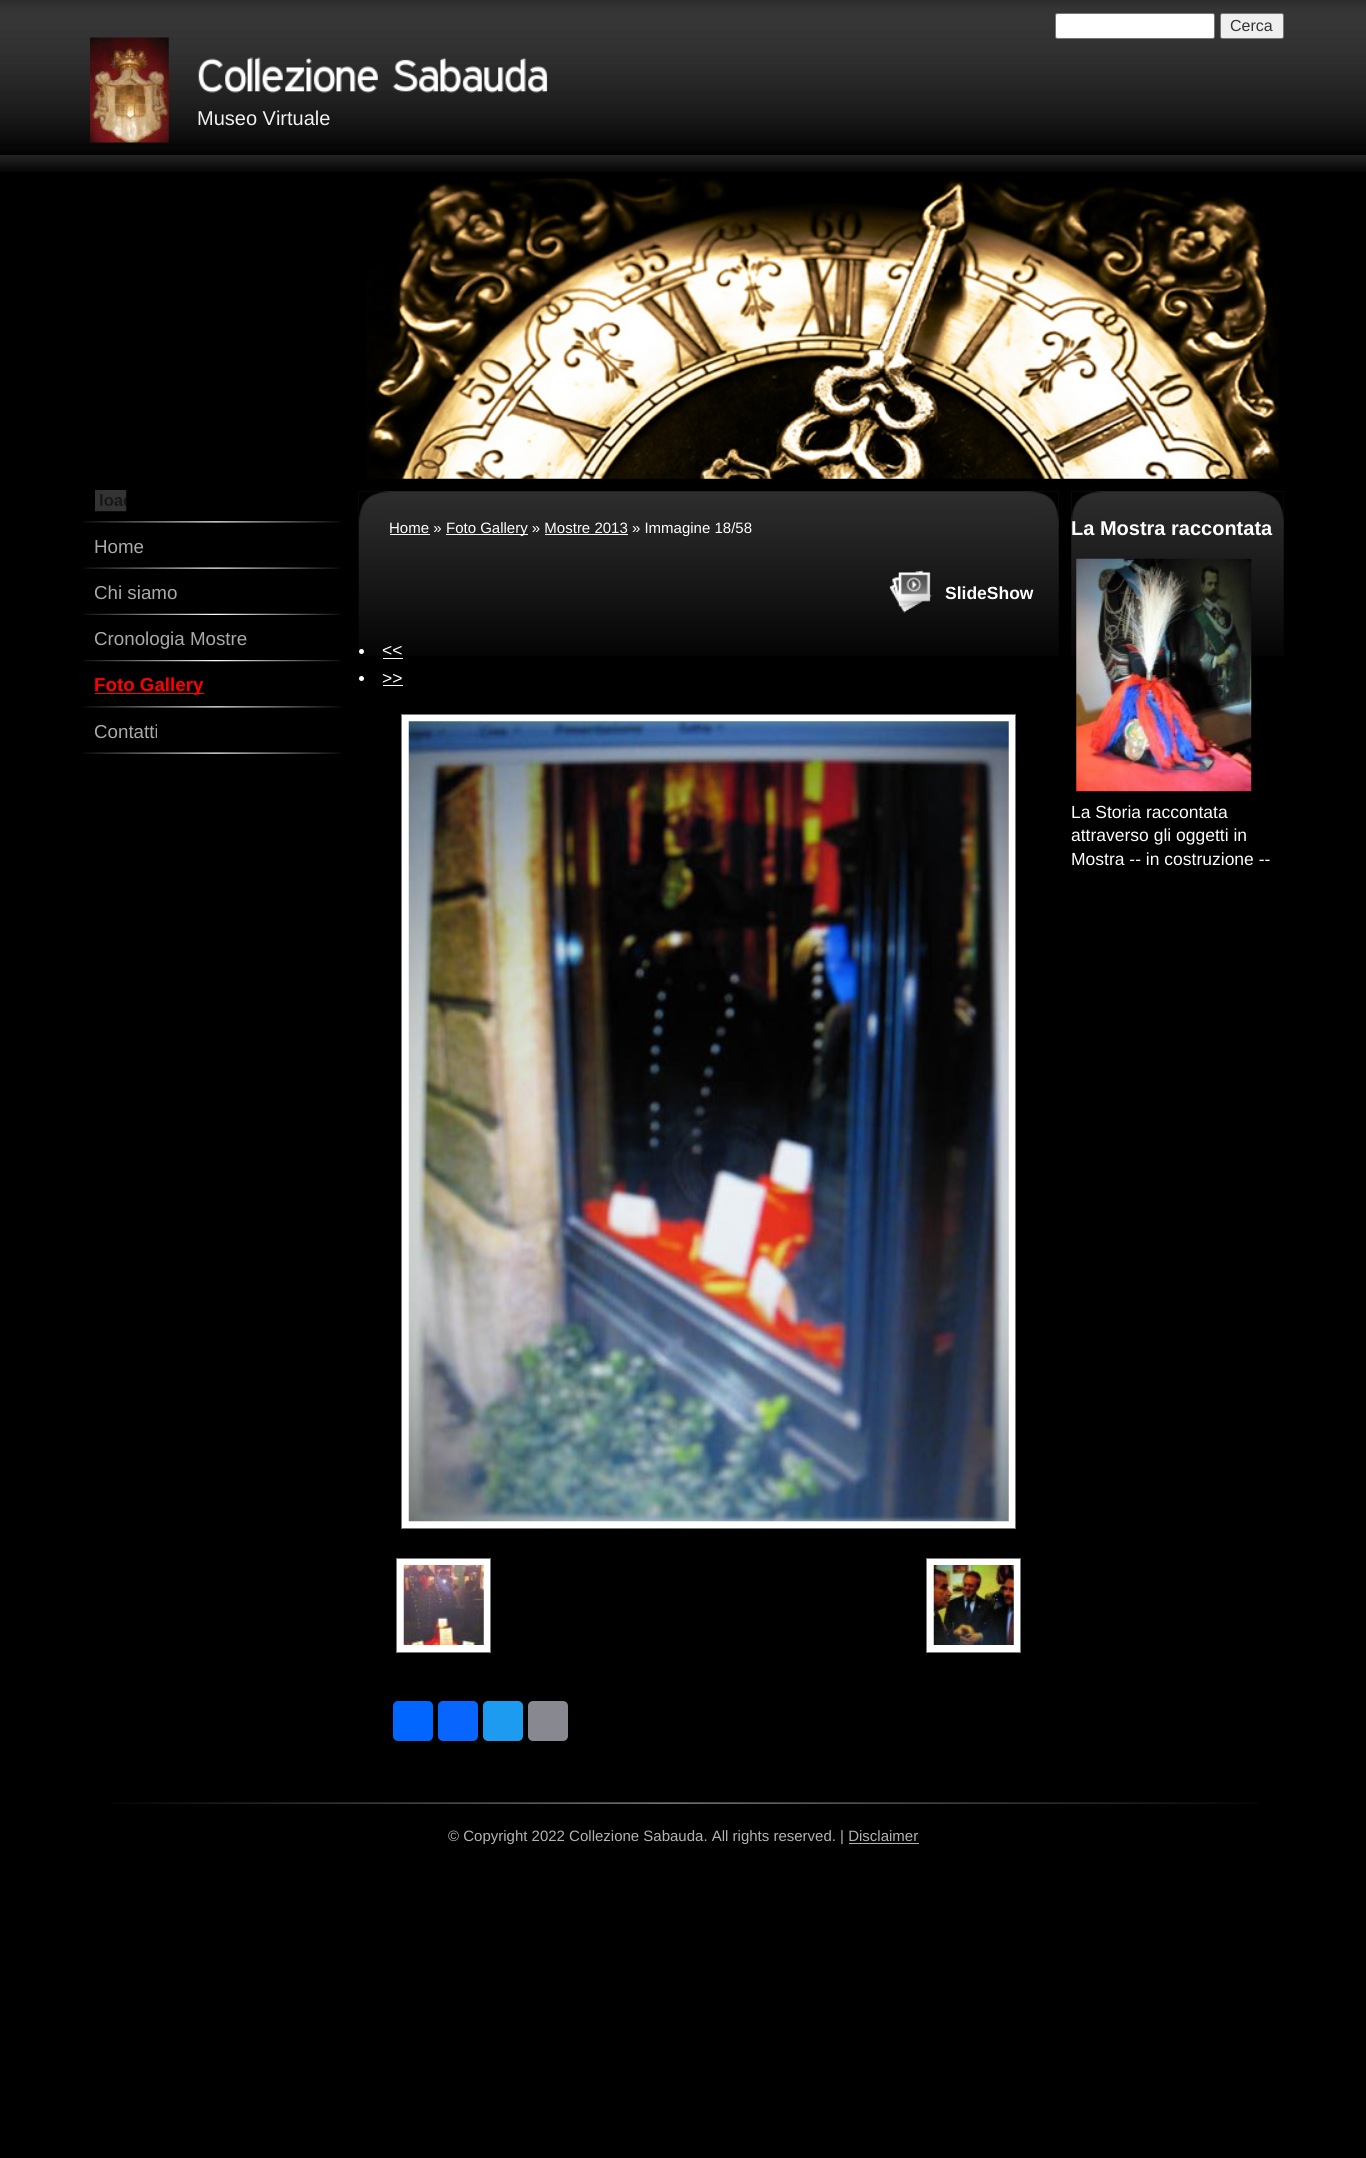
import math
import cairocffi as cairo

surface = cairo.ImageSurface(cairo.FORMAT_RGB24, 1366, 2158)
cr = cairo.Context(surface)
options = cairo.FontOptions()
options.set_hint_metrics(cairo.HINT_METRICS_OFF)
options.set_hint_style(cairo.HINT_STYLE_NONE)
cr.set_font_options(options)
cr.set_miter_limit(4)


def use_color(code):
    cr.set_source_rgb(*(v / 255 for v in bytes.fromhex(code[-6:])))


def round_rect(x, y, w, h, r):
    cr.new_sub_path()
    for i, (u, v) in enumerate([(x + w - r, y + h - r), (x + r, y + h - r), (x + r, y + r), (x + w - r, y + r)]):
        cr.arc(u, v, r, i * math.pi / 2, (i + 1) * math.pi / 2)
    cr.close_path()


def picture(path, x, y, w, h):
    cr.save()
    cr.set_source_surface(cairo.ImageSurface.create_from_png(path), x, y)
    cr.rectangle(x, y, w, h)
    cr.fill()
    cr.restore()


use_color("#000000")
cr.paint()
picture("img1.png", 0, 0, 1366, 172)
use_color("#ffffff")
round_rect(1055.5, 13.5, 159, 25, 2)
cr.fill_preserve()
use_color("#767676")
cr.set_line_width(1)
cr.stroke()
use_color("#efefef")
round_rect(1220.5, 13.5, 63, 25, 2)
cr.fill_preserve()
use_color("#767676")
cr.stroke()
cr.select_font_face("Liberation Sans")
cr.set_font_size(16)
use_color("#333333")
cr.move_to(1230, 31)
cr.show_text("Cerca")
picture("img2.png", 90, 37, 79, 106)
picture("img3.png", 198, 57, 350, 36)
cr.set_font_size(20)
use_color("#f1f1f1")
cr.move_to(197, 125)
cr.show_text("Museo Virtuale")
picture("img4.png", 366, 178, 913, 301)
use_color("#020100")
cr.rectangle(1278, 468, 1, 1)
cr.fill()
use_color("#000000")
cr.rectangle(369, 477, 4, 1)
cr.fill()
picture("img5.png", 84, 521, 256, 2)
picture("img6.png", 95, 490, 32, 22)
picture("img7.png", 84, 567, 256, 2)
cr.set_font_size(18.75)
use_color("#aaaaaa")
cr.move_to(94, 553)
cr.show_text("Home")
picture("img8.png", 84, 613, 256, 2)
cr.move_to(94, 599)
cr.show_text("Chi siamo")
picture("img9.png", 84, 660, 256, 2)
cr.move_to(94, 645)
cr.show_text("Cronologia Mostre")
picture("img5.png", 84, 706, 256, 2)
use_color("#ff0000")
cr.rectangle(95, 693, 109, 1)
cr.fill()
cr.select_font_face("Liberation Sans", cairo.FONT_SLANT_NORMAL, cairo.FONT_WEIGHT_BOLD)
cr.move_to(94, 691)
cr.show_text("Foto Gallery")
picture("img7.png", 84, 752, 256, 2)
cr.select_font_face("Liberation Sans")
use_color("#aaaaaa")
cr.move_to(94, 738)
cr.show_text("Contatti")
picture("img10.png", 358, 491, 701, 165)
picture("img11.png", 1028, 491, 31, 30)
picture("img12.png", 358, 491, 33, 31)
cr.set_font_size(15)
use_color("#ffffff")
cr.move_to(389, 533)
cr.show_text("Home »")
cr.rectangle(390, 534, 40, 1)
cr.fill()
cr.rectangle(446, 534, 82, 1)
cr.fill()
cr.move_to(446, 533)
cr.show_text("Foto Gallery » Mostre 2013 » Immagine 18/58")
cr.rectangle(545, 534, 83, 1)
cr.fill()
picture("img13.png", 889, 570, 43, 43)
cr.select_font_face("Liberation Sans", cairo.FONT_SLANT_NORMAL, cairo.FONT_WEIGHT_BOLD)
cr.set_font_size(17.5)
cr.move_to(945, 599)
cr.show_text("SlideShow")
cr.new_path()
cr.arc(361.5, 651.5, 2.5, 0, 2 * math.pi)
cr.fill()
cr.select_font_face("Liberation Sans")
cr.move_to(382, 656)
cr.show_text("<<")
cr.rectangle(383, 658, 20, 1)
cr.fill()
cr.arc(361.5, 678.5, 2.5, 0, 2 * math.pi)
cr.fill()
cr.move_to(382, 684)
cr.show_text(">>")
cr.rectangle(383, 685, 20, 1)
cr.fill()
cr.rectangle(401.5, 714.5, 614, 814)
cr.fill_preserve()
use_color("#777777")
cr.stroke()
picture("img14.png", 408, 721, 601, 801)
use_color("#ffffff")
cr.rectangle(396.5, 1558.5, 94, 94)
cr.fill_preserve()
use_color("#777777")
cr.stroke()
picture("img15.png", 403, 1565, 81, 80)
use_color("#ffffff")
cr.rectangle(926.5, 1558.5, 94, 94)
cr.fill_preserve()
use_color("#777777")
cr.stroke()
picture("img16.png", 933, 1565, 81, 80)
use_color("#0166ff")
round_rect(393, 1701, 40, 40, 5)
cr.fill()
use_color("#0866ff")
round_rect(438, 1701, 40, 40, 5)
cr.fill()
use_color("#1d9bf0")
round_rect(483, 1701, 40, 40, 5)
cr.fill()
use_color("#888990")
round_rect(528, 1701, 40, 40, 5)
cr.fill()
picture("img17.png", 1071, 491, 213, 165)
picture("img18.png", 1253, 491, 31, 30)
picture("img19.png", 1071, 491, 33, 30)
cr.select_font_face("Liberation Sans", cairo.FONT_SLANT_NORMAL, cairo.FONT_WEIGHT_BOLD)
cr.set_font_size(20)
use_color("#ffffff")
cr.move_to(1071, 535)
cr.show_text("La Mostra raccontata")
picture("img20.png", 1076, 558, 176, 234)
cr.select_font_face("Liberation Sans")
cr.set_font_size(17.5)
cr.move_to(1071, 818)
cr.show_text("La Storia raccontata")
cr.move_to(1071, 841)
cr.show_text("attraverso gli oggetti in")
cr.move_to(1071, 865)
cr.show_text("Mostra -- in costruzione --")
picture("img21.png", 111, 1802, 1148, 2)
cr.set_font_size(15)
use_color("#b3b3b3")
cr.move_to(448, 1841)
cr.show_text("© Copyright 2022 Collezione Sabauda. All rights reserved. | Disclaimer")
cr.rectangle(849, 1843, 70, 1)
cr.fill()
surface.write_to_png("result.png")
